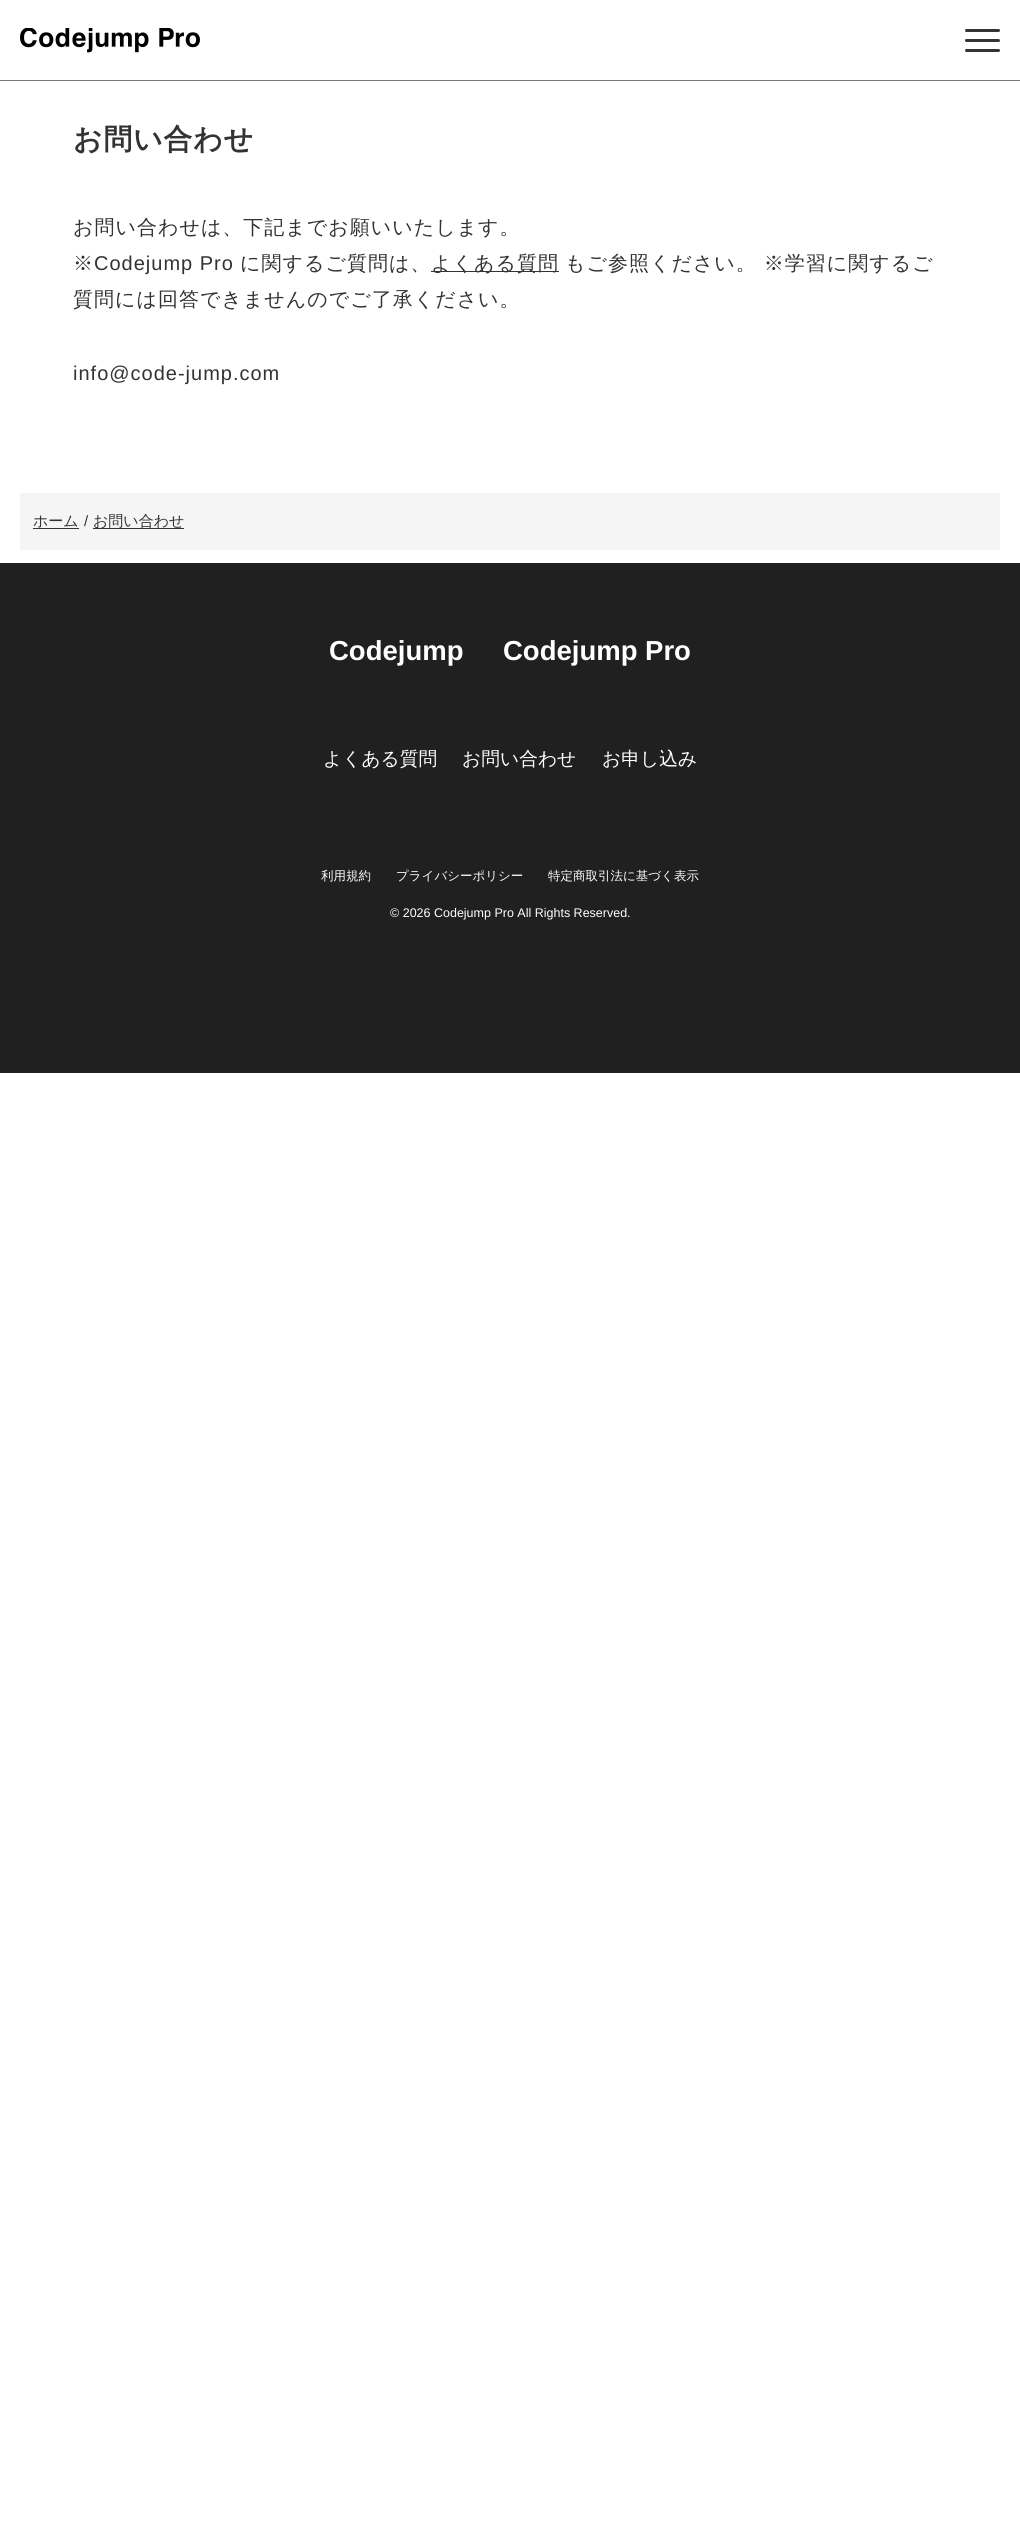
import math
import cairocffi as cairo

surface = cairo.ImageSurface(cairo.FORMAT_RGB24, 1020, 2533)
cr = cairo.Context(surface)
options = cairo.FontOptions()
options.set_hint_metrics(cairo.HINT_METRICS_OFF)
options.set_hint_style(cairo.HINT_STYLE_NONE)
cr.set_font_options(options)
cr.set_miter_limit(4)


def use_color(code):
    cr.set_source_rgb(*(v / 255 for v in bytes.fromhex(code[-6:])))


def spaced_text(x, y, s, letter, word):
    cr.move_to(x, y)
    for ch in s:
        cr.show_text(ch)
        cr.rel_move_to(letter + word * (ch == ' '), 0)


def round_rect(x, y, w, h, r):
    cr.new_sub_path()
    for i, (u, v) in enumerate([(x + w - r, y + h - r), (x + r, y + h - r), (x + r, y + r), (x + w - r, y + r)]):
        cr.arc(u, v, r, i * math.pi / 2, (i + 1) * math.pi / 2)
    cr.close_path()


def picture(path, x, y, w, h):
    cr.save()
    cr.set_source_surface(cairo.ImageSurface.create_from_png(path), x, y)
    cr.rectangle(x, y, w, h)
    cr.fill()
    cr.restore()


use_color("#ffffff")
cr.paint()
use_color("#7a7a7a")
cr.rectangle(0, 80, 1020, 1)
cr.fill()
picture("img1.png", 20, 28, 180, 25)
use_color("#333333")
round_rect(965, 29, 35, 3, 1.5)
cr.fill()
round_rect(965, 39, 35, 3, 1.5)
cr.fill()
round_rect(965, 49, 35, 3, 1.5)
cr.fill()
cr.select_font_face("WenQuanYi Zen Hei", cairo.FONT_SLANT_NORMAL, cairo.FONT_WEIGHT_BOLD)
cr.set_font_size(28.75)
spaced_text(73, 149, "お問い合わせ", 1, 0)
cr.select_font_face("WenQuanYi Zen Hei Medium")
cr.set_font_size(20)
spaced_text(73, 234, "お問い合わせは、下記までお願いいたします。", 1, 0)
spaced_text(73, 270, "※", 1, 0)
cr.select_font_face("Liberation Sans")
spaced_text(94, 270, "Codejump Pro", 1, 0)
cr.select_font_face("WenQuanYi Zen Hei Medium")
spaced_text(240, 270, "に関するご質問は、", 1, 0)
cr.rectangle(431, 271, 128, 1)
cr.fill()
spaced_text(431, 270, "よくある質問", 1, 0)
spaced_text(565, 270, "もご参照ください。 ※学習に関するご", 1, 0)
spaced_text(73, 306, "質問には回答できませんのでご了承ください。", 1, 0)
cr.select_font_face("Liberation Sans")
spaced_text(73, 380, "info@code-jump.com", 1, 0)
use_color("#f5f5f5")
cr.rectangle(20, 493, 980, 57)
cr.fill()
cr.select_font_face("WenQuanYi Zen Hei Medium")
cr.set_font_size(15)
use_color("#333333")
cr.move_to(33, 526)
cr.show_text("ホーム")
cr.rectangle(33, 528, 46, 1)
cr.fill()
cr.select_font_face("Liberation Sans")
cr.move_to(84, 526)
cr.show_text("/")
cr.rectangle(93, 528, 91, 1)
cr.fill()
cr.select_font_face("WenQuanYi Zen Hei Medium")
cr.move_to(93, 526)
cr.show_text("お問い合わせ")
use_color("#202020")
cr.rectangle(0, 563, 1020, 510)
cr.fill()
cr.select_font_face("Liberation Sans", cairo.FONT_SLANT_NORMAL, cairo.FONT_WEIGHT_BOLD)
cr.set_font_size(27.5)
use_color("#ffffff")
cr.move_to(329, 660)
cr.show_text("Codejump")
cr.move_to(503, 660)
cr.show_text("Codejump Pro")
cr.select_font_face("WenQuanYi Zen Hei Medium")
cr.set_font_size(18.75)
cr.move_to(323, 765)
cr.show_text("よくある質問")
cr.move_to(462, 765)
cr.show_text("お問い合わせ")
cr.move_to(602, 765)
cr.show_text("お申し込み")
cr.set_font_size(12.5)
cr.move_to(321, 880)
cr.show_text("利用規約")
cr.move_to(396, 880)
cr.show_text("プライバシーポリシー")
cr.move_to(548, 880)
cr.show_text("特定商取引法に基づく表示")
cr.select_font_face("Liberation Sans")
cr.move_to(390, 917)
cr.show_text("© 2026 Codejump Pro All Rights Reserved.")
surface.write_to_png("result.png")
